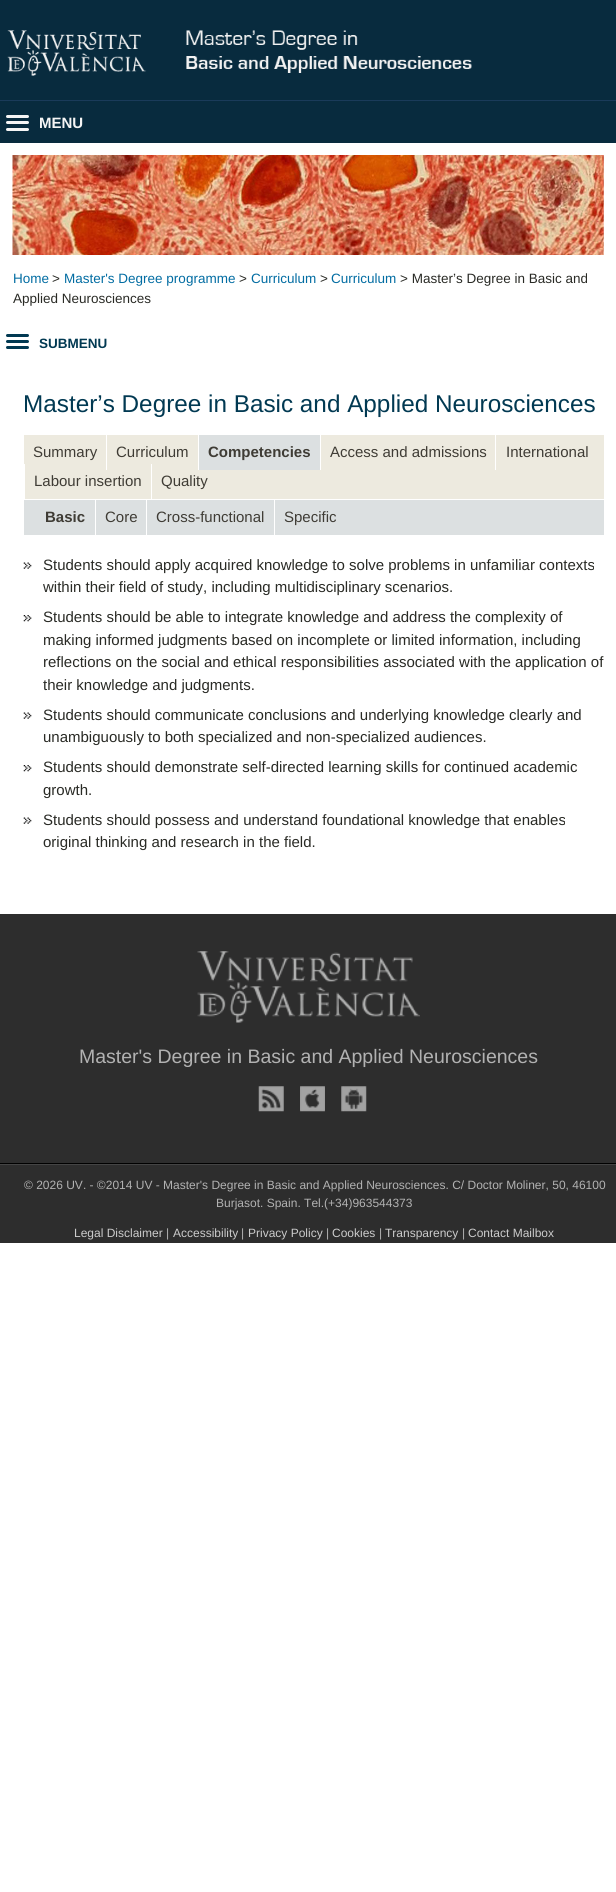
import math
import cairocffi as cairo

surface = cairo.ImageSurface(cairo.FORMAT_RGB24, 616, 1892)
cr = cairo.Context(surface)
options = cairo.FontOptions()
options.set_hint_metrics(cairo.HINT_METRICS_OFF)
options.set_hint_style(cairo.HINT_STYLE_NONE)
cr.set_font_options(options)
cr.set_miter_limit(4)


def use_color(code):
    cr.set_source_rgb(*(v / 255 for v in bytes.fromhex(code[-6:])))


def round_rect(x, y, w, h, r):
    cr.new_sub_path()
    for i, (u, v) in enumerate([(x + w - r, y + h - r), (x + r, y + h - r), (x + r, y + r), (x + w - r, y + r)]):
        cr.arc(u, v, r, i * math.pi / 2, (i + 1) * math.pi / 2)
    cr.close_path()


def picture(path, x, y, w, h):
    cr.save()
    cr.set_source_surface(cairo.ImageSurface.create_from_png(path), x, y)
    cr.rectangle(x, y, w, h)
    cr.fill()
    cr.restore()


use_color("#ffffff")
cr.paint()
use_color("#082b3e")
cr.rectangle(0, 0, 616, 100)
cr.fill()
picture("img1.png", 7, 30, 465, 46)
cr.rectangle(0, 101, 616, 42)
cr.fill()
use_color("#1a3b5a")
cr.rectangle(0, 100, 616, 1)
cr.fill()
use_color("#f5f5f5")
round_rect(6, 115, 23, 3, 1.5)
cr.fill()
round_rect(6, 121, 23, 3, 1.5)
cr.fill()
cr.select_font_face("Liberation Sans", cairo.FONT_SLANT_NORMAL, cairo.FONT_WEIGHT_BOLD)
cr.set_font_size(15)
cr.move_to(39, 128)
cr.show_text("MENU")
round_rect(6, 128, 23, 3, 1.5)
cr.fill()
picture("img2.png", 12, 155, 592, 100)
cr.select_font_face("Liberation Sans")
cr.set_font_size(13.5)
use_color("#016ca2")
cr.move_to(13, 283)
cr.show_text("Home")
use_color("#292a25")
cr.move_to(52, 283)
cr.show_text(">")
use_color("#016ca2")
cr.move_to(64, 283)
cr.show_text("Master's Degree programme")
use_color("#292a25")
cr.move_to(239, 283)
cr.show_text(">")
use_color("#016ca2")
cr.move_to(251, 283)
cr.show_text("Curriculum")
use_color("#292a25")
cr.move_to(320, 283)
cr.show_text(">")
use_color("#016ca2")
cr.move_to(331, 283)
cr.show_text("Curriculum")
use_color("#292a25")
cr.move_to(400, 283)
cr.show_text("> Master’s Degree in Basic and")
cr.move_to(13, 303)
cr.show_text("Applied Neurosciences")
use_color("#013952")
round_rect(6, 334, 23, 3, 1.5)
cr.fill()
round_rect(6, 340, 23, 3, 1.5)
cr.fill()
cr.select_font_face("Liberation Sans", cairo.FONT_SLANT_NORMAL, cairo.FONT_WEIGHT_BOLD)
cr.move_to(39, 348)
cr.show_text("SUBMENU")
round_rect(6, 346, 23, 3, 1.5)
cr.fill()
cr.select_font_face("Liberation Sans")
cr.set_font_size(24.3)
cr.move_to(23, 412)
cr.show_text("Master’s Degree in Basic and Applied Neurosciences")
use_color("#edeadf")
cr.rectangle(24, 435, 580, 64)
cr.fill()
cr.set_font_size(15)
use_color("#3f3c35")
cr.move_to(33, 457)
cr.show_text("Summary")
cr.move_to(116, 457)
cr.show_text("Curriculum")
use_color("#ffffff")
cr.rectangle(106, 435, 1, 35)
cr.fill()
use_color("#dce0e1")
cr.rectangle(199, 435, 121, 35)
cr.fill()
cr.select_font_face("Liberation Sans", cairo.FONT_SLANT_NORMAL, cairo.FONT_WEIGHT_BOLD)
use_color("#3f3c35")
cr.move_to(208, 457)
cr.show_text("Competencies")
use_color("#ffffff")
cr.rectangle(198, 435, 1, 35)
cr.fill()
cr.select_font_face("Liberation Sans")
use_color("#3f3c35")
cr.move_to(330, 457)
cr.show_text("Access and admissions")
use_color("#ffffff")
cr.rectangle(320, 435, 1, 35)
cr.fill()
use_color("#3f3c35")
cr.move_to(506, 457)
cr.show_text("International")
use_color("#ffffff")
cr.rectangle(495, 435, 1, 35)
cr.fill()
use_color("#3f3c35")
cr.move_to(34, 486)
cr.show_text("Labour insertion")
use_color("#ffffff")
cr.rectangle(24, 464, 1, 35)
cr.fill()
use_color("#3f3c35")
cr.move_to(161, 486)
cr.show_text("Quality")
use_color("#ffffff")
cr.rectangle(151, 464, 1, 35)
cr.fill()
use_color("#dce0e1")
cr.rectangle(24, 500, 580, 35)
cr.fill()
cr.select_font_face("Liberation Sans", cairo.FONT_SLANT_NORMAL, cairo.FONT_WEIGHT_BOLD)
use_color("#3f3c35")
cr.move_to(45, 522)
cr.show_text("Basic")
cr.select_font_face("Liberation Sans")
cr.move_to(105, 522)
cr.show_text("Core")
use_color("#ffffff")
cr.rectangle(95, 500, 1, 35)
cr.fill()
use_color("#3f3c35")
cr.move_to(156, 522)
cr.show_text("Cross-functional")
use_color("#ffffff")
cr.rectangle(146, 500, 1, 35)
cr.fill()
use_color("#3f3c35")
cr.move_to(284, 522)
cr.show_text("Specific")
use_color("#ffffff")
cr.rectangle(274, 500, 1, 35)
cr.fill()
picture("img3.png", 23, 562, 9, 7)
use_color("#292a25")
cr.move_to(43, 570)
cr.show_text("Students should apply acquired knowledge to solve problems in unfamiliar contexts")
cr.move_to(43, 592)
cr.show_text("within their field of study, including multidisciplinary scenarios.")
picture("img4.png", 23, 615, 9, 7)
cr.move_to(43, 622)
cr.show_text("Students should be able to integrate knowledge and address the complexity of")
cr.move_to(43, 645)
cr.show_text("making informed judgments based on incomplete or limited information, including")
cr.move_to(43, 667)
cr.show_text("reflections on the social and ethical responsibilities associated with the application of")
cr.move_to(43, 690)
cr.show_text("their knowledge and judgments.")
picture("img3.png", 23, 712, 9, 7)
cr.move_to(43, 720)
cr.show_text("Students should communicate conclusions and underlying knowledge clearly and")
cr.move_to(43, 742)
cr.show_text("unambiguously to both specialized and non-specialized audiences.")
picture("img4.png", 23, 765, 9, 7)
cr.move_to(43, 772)
cr.show_text("Students should demonstrate self-directed learning skills for continued academic")
cr.move_to(43, 795)
cr.show_text("growth.")
picture("img3.png", 23, 817, 9, 7)
cr.move_to(43, 825)
cr.show_text("Students should possess and understand foundational knowledge that enables")
cr.move_to(43, 847)
cr.show_text("original thinking and research in the field.")
use_color("#2d2d2d")
cr.rectangle(0, 914, 616, 329)
cr.fill()
picture("img5.png", 197, 951, 223, 72)
cr.set_font_size(19.5)
use_color("#b2b2b2")
cr.move_to(79, 1063)
cr.show_text("Master's Degree in Basic and Applied Neurosciences")
picture("img6.png", 258, 1086, 26, 26)
picture("img7.png", 300, 1086, 25, 26)
picture("img8.png", 341, 1086, 26, 26)
use_color("#000000")
cr.rectangle(0, 1163, 616, 1)
cr.fill()
use_color("#444444")
cr.rectangle(0, 1164, 616, 1)
cr.fill()
cr.set_font_size(12)
use_color("#b2b2b2")
cr.move_to(24, 1189)
cr.show_text("© 2026 UV. - ©2014 UV - Master's Degree in Basic and Applied Neurosciences. C/ Doctor Moliner, 50, 46100")
cr.move_to(216, 1207)
cr.show_text("Burjasot. Spain. Tel.(+34)963544373")
use_color("#cccccc")
cr.move_to(74, 1237)
cr.show_text("Legal Disclaimer")
use_color("#b2b2b2")
cr.move_to(166, 1237)
cr.show_text("|")
use_color("#cccccc")
cr.move_to(173, 1237)
cr.show_text("Accessibility")
use_color("#b2b2b2")
cr.move_to(241, 1237)
cr.show_text("|")
use_color("#cccccc")
cr.move_to(248, 1237)
cr.show_text("Privacy Policy")
use_color("#b2b2b2")
cr.move_to(326, 1237)
cr.show_text("|")
use_color("#cccccc")
cr.move_to(332, 1237)
cr.show_text("Cookies")
use_color("#b2b2b2")
cr.move_to(379, 1237)
cr.show_text("|")
use_color("#cccccc")
cr.move_to(385, 1237)
cr.show_text("Transparency")
use_color("#b2b2b2")
cr.move_to(462, 1237)
cr.show_text("|")
use_color("#cccccc")
cr.move_to(468, 1237)
cr.show_text("Contact Mailbox")
surface.write_to_png("result.png")
